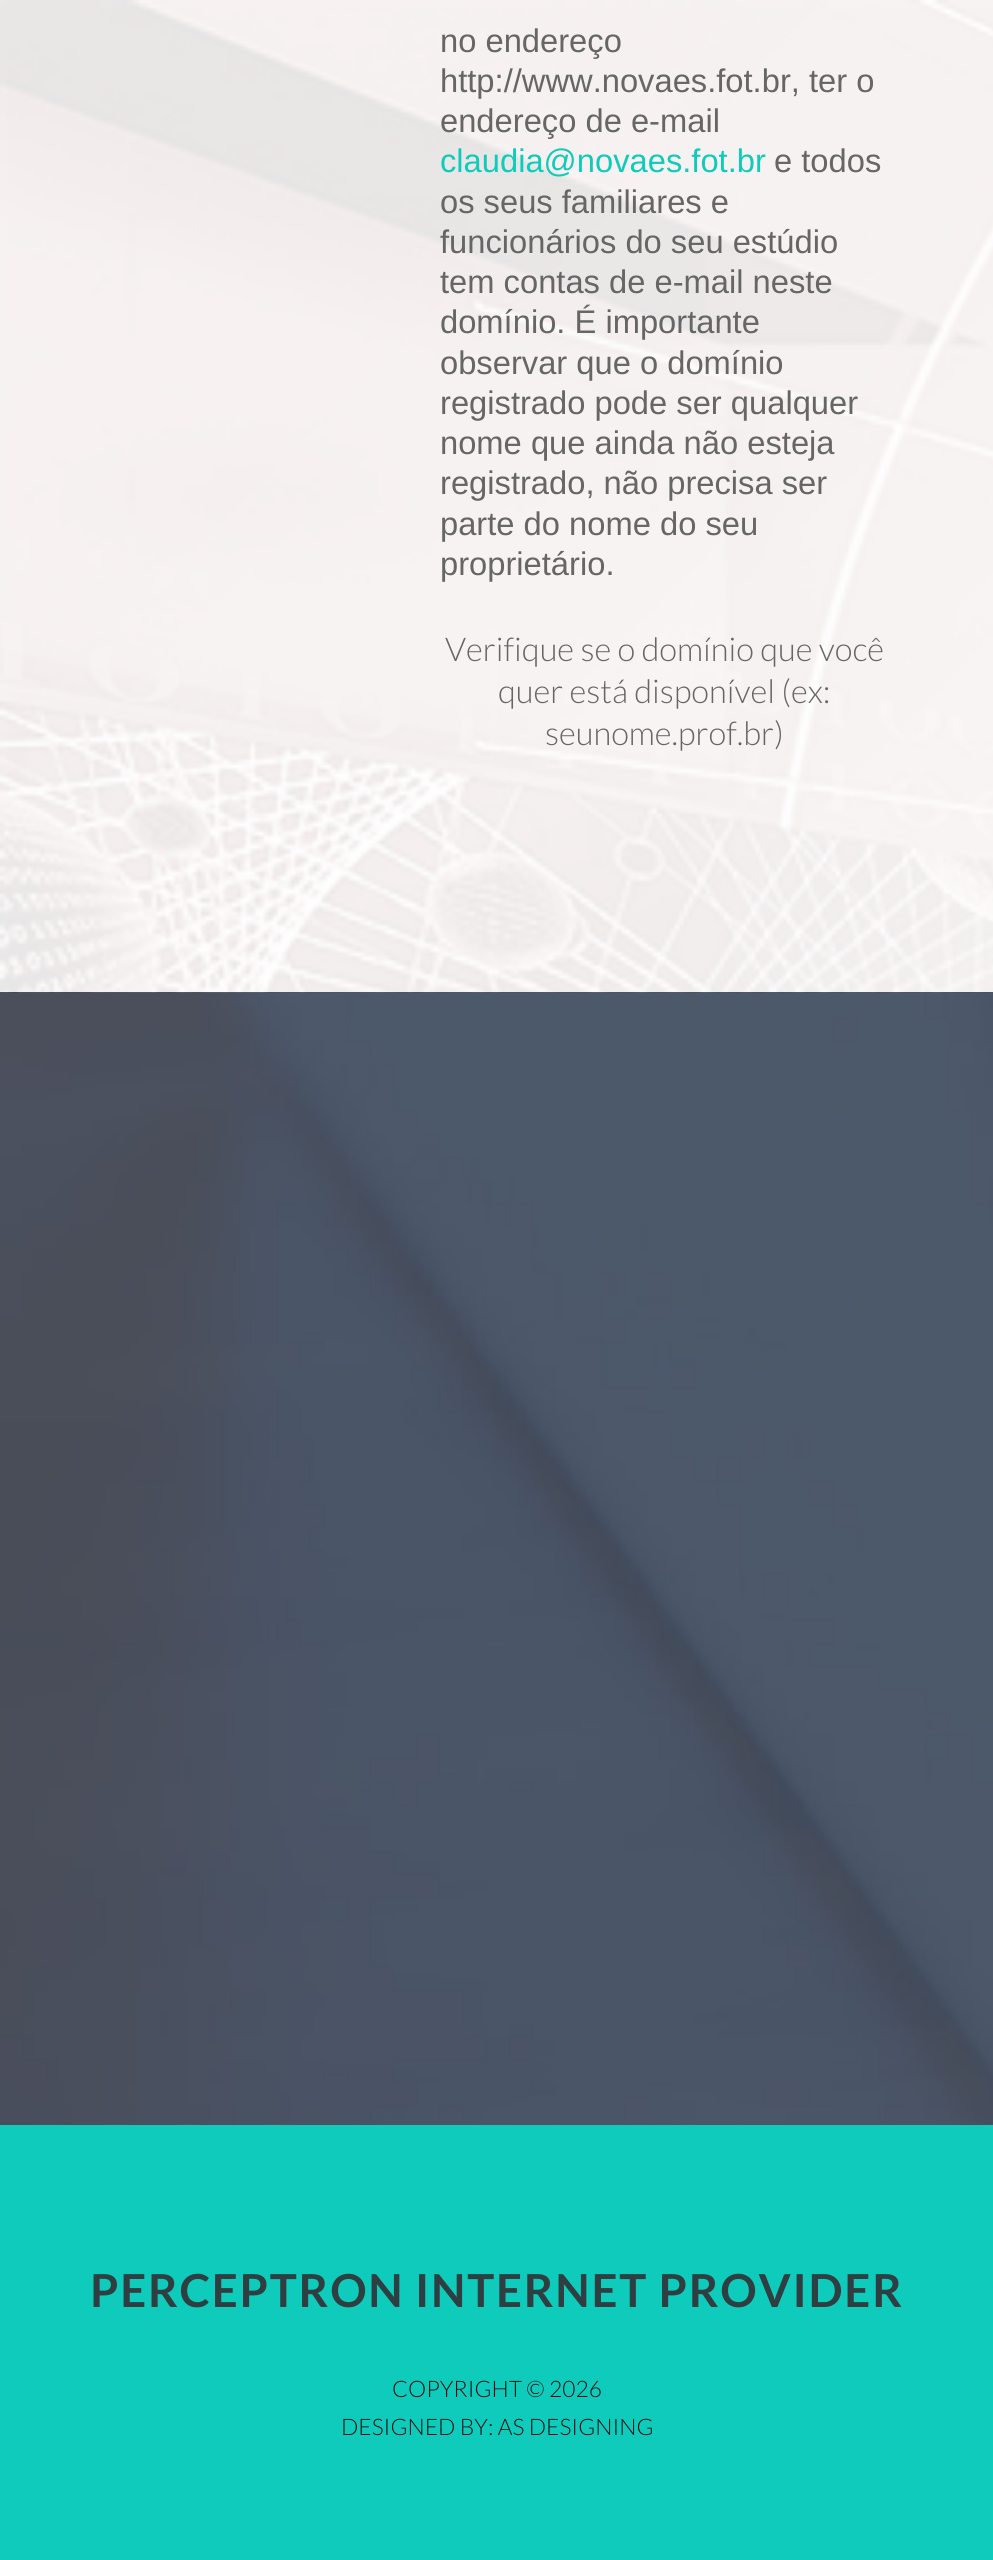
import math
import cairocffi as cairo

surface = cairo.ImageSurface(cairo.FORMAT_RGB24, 993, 2560)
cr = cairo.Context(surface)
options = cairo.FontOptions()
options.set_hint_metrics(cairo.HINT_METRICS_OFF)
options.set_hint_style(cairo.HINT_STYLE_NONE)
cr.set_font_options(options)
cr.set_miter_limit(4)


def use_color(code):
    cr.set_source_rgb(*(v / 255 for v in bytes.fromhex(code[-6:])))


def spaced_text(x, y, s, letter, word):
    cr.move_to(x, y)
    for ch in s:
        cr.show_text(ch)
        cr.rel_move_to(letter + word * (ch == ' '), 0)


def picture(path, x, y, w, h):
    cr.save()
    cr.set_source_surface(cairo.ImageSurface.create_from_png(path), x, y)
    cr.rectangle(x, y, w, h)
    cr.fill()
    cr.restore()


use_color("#ffffff")
cr.paint()
picture("img2.png", 0, 992, 993, 1133)
picture("img1.png", 0, 0, 993, 993)
cr.select_font_face("Liberation Sans")
cr.set_font_size(32.7)
use_color("#666666")
cr.move_to(440, 52)
cr.show_text("no endereço")
cr.move_to(440, 92)
cr.show_text("http://www.novaes.fot.br, ter o")
cr.move_to(440, 132)
cr.show_text("endereço de e-mail")
use_color("#0fcbbb")
cr.move_to(440, 172)
cr.show_text("claudia@novaes.fot.br")
use_color("#666666")
cr.move_to(774, 172)
cr.show_text("e todos")
cr.move_to(440, 213)
cr.show_text("os seus familiares e")
cr.move_to(440, 253)
cr.show_text("funcionários do seu estúdio")
cr.move_to(440, 293)
cr.show_text("tem contas de e-mail neste")
cr.move_to(440, 333)
cr.show_text("domínio. É importante")
cr.move_to(440, 374)
cr.show_text("observar que o domínio")
cr.move_to(440, 414)
cr.show_text("registrado pode ser qualquer")
cr.move_to(440, 454)
cr.show_text("nome que ainda não esteja")
cr.move_to(440, 494)
cr.show_text("registrado, não precisa ser")
cr.move_to(440, 535)
cr.show_text("parte do nome do seu")
cr.move_to(440, 575)
cr.show_text("proprietário.")
cr.select_font_face("Lato Light")
cr.move_to(445, 661)
cr.show_text("Verifique se o domínio que você")
cr.move_to(498, 703)
cr.show_text("quer está disponível (ex:")
cr.move_to(545, 745)
cr.show_text("seunome.prof.br)")
picture("img3.png", 0, 2124, 901, 1)
use_color("#0fcbbb")
cr.rectangle(0, 2125, 993, 435)
cr.fill()
cr.select_font_face("Lato", cairo.FONT_SLANT_NORMAL, cairo.FONT_WEIGHT_BOLD)
cr.set_font_size(45.5)
use_color("#2f3e40")
spaced_text(90, 2307, "PERCEPTRON INTERNET PROVIDER", 1.75, 0)
cr.select_font_face("Lato Light")
cr.set_font_size(22.75)
use_color("#111111")
cr.move_to(392, 2397)
cr.show_text("COPYRIGHT © 2026")
cr.move_to(341, 2435)
cr.show_text("DESIGNED BY: AS DESIGNING")
surface.write_to_png("result.png")
